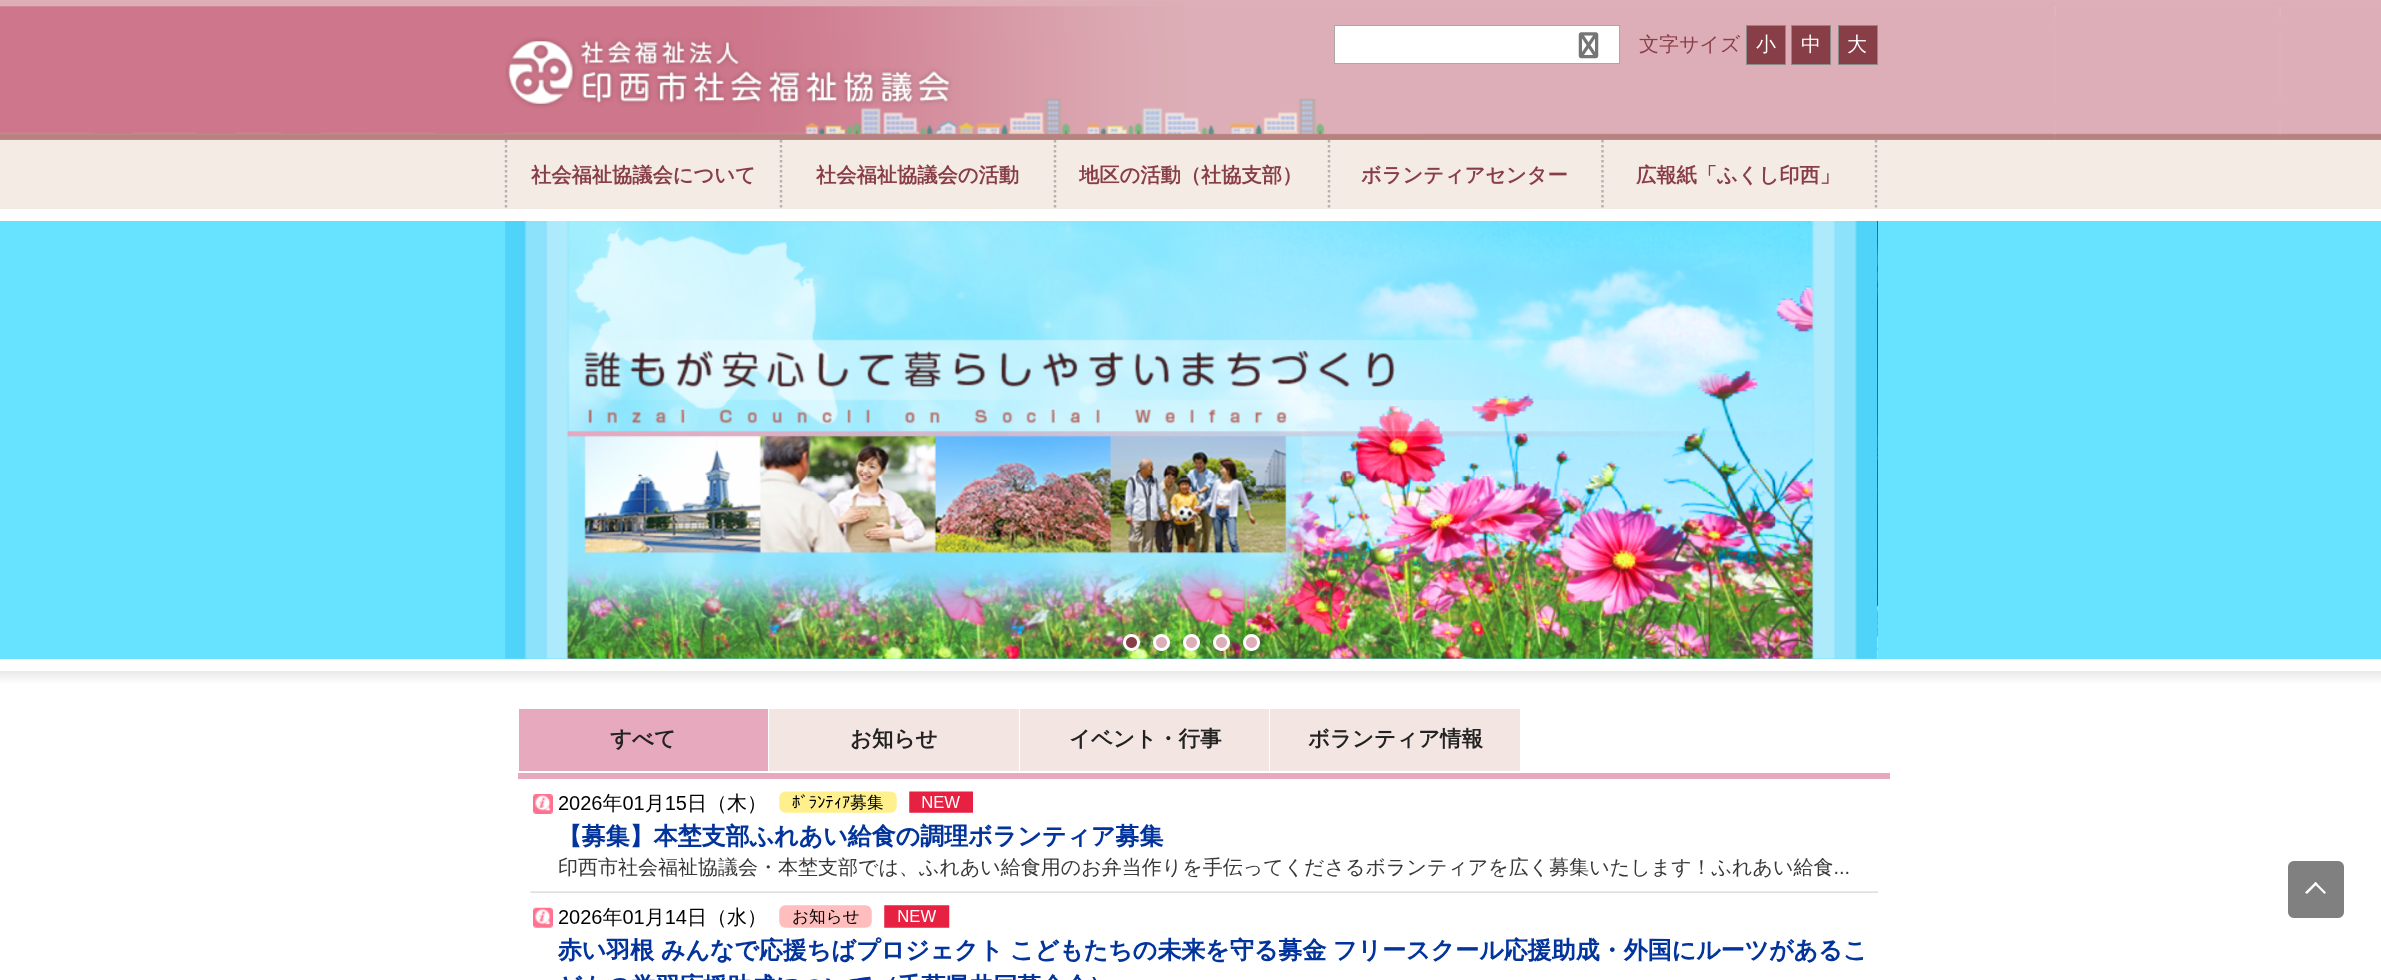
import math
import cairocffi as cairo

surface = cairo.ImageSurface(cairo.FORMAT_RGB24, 2381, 980)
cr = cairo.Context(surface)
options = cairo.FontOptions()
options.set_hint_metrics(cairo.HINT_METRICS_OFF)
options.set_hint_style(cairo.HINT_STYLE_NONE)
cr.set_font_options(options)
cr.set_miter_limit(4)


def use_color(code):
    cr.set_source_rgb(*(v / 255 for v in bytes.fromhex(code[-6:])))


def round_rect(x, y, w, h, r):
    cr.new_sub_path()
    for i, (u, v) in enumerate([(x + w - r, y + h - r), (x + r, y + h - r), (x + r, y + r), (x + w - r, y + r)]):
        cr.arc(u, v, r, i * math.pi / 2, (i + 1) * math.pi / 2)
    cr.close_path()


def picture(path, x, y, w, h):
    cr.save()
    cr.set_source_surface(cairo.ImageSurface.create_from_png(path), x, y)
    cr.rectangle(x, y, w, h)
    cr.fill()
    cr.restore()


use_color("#ffffff")
cr.paint()
picture("img1.png", 0, 0, 2381, 140)
picture("img2.png", 505, 37, 916, 103)
use_color("#ffffff")
cr.rectangle(1334.5, 25.5, 285, 38)
cr.fill_preserve()
use_color("#a8a8a8")
cr.set_line_width(1)
cr.stroke()
picture("img3.png", 1578, 32, 21, 27)
cr.select_font_face("WenQuanYi Zen Hei Medium")
cr.set_font_size(20)
use_color("#883e47")
cr.move_to(1639, 51)
cr.show_text("文字サイズ")
cr.rectangle(1746.5, 25.5, 39, 39)
cr.fill_preserve()
use_color("#8c8c8c")
cr.stroke()
use_color("#ffffff")
cr.move_to(1756, 51)
cr.show_text("小")
use_color("#883e47")
cr.rectangle(1791.5, 25.5, 39, 39)
cr.fill_preserve()
use_color("#8c8c8c")
cr.stroke()
use_color("#ffffff")
cr.move_to(1801, 51)
cr.show_text("中")
use_color("#883e47")
cr.rectangle(1838.5, 25.5, 39, 39)
cr.fill_preserve()
use_color("#8c8c8c")
cr.stroke()
use_color("#ffffff")
cr.move_to(1847, 51)
cr.show_text("大")
use_color("#f5ebe5")
cr.rectangle(0, 140, 2381, 69)
cr.fill()
cr.new_path()
cr.move_to(1876, 140)
cr.line_to(1876, 209)
use_color("#beafae")
cr.set_line_width(2.5)
cr.set_dash([2.5, 2.5])
cr.stroke()
cr.new_path()
cr.move_to(506, 140)
cr.line_to(506, 209)
cr.stroke()
cr.select_font_face("WenQuanYi Zen Hei", cairo.FONT_SLANT_NORMAL, cairo.FONT_WEIGHT_BOLD)
cr.set_font_size(20.25)
use_color("#883e47")
cr.move_to(531, 182)
cr.show_text("社会福祉協議会について")
cr.new_path()
cr.move_to(781, 140)
cr.line_to(781, 209)
use_color("#beafae")
cr.stroke()
use_color("#883e47")
cr.move_to(816, 182)
cr.show_text("社会福祉協議会の活動")
cr.new_path()
cr.move_to(1055, 140)
cr.line_to(1055, 209)
use_color("#beafae")
cr.stroke()
use_color("#883e47")
cr.move_to(1079, 182)
cr.show_text("地区の活動（社協支部）")
cr.new_path()
cr.move_to(1329, 140)
cr.line_to(1329, 209)
use_color("#beafae")
cr.stroke()
use_color("#883e47")
cr.move_to(1361, 182)
cr.show_text("ボランティアセンター")
cr.new_path()
cr.move_to(1602.5, 140)
cr.line_to(1602.5, 209)
use_color("#beafae")
cr.stroke()
use_color("#883e47")
cr.move_to(1636, 182)
cr.show_text("広報紙「ふくし印西」")
use_color("#68e3ff")
cr.rectangle(0, 221, 2381, 438)
cr.fill()
picture("img4.png", 505, 221, 1373, 438)
picture("img5.png", 1877, 221, 1, 438)
use_color("#883e47")
cr.arc(1131.5, 642.5, 7, 0, 2 * math.pi)
cr.fill_preserve()
use_color("#ffffff")
cr.set_line_width(3)
cr.set_dash([])
cr.stroke()
use_color("#ddaeb7")
cr.arc(1161.5, 642.5, 7, 0, 2 * math.pi)
cr.fill_preserve()
use_color("#ffffff")
cr.stroke()
use_color("#ddaeb7")
cr.arc(1191.5, 642.5, 7, 0, 2 * math.pi)
cr.fill_preserve()
use_color("#ffffff")
cr.stroke()
use_color("#ddaeb7")
cr.arc(1221.5, 642.5, 7, 0, 2 * math.pi)
cr.fill_preserve()
use_color("#ffffff")
cr.stroke()
use_color("#ddaeb7")
cr.arc(1251.5, 642.5, 7, 0, 2 * math.pi)
cr.fill_preserve()
use_color("#ffffff")
cr.stroke()
gradient = cairo.LinearGradient(1191, 671, 1191, 684)
gradient.add_color_stop_rgba(0, 0.914, 0.914, 0.914, 1)
gradient.add_color_stop_rgba(1, 1, 1, 1, 1)
cr.set_source(gradient)
cr.rectangle(0, 671, 2381, 12)
cr.fill()
use_color("#e6a9bd")
cr.rectangle(519, 709, 249, 62)
cr.fill()
cr.set_font_size(21.5)
use_color("#222222")
cr.move_to(610, 746)
cr.show_text("すべて")
use_color("#f3e5e1")
cr.rectangle(769, 709, 250, 62)
cr.fill()
use_color("#222222")
cr.move_to(850, 746)
cr.show_text("お知らせ")
use_color("#f3e5e1")
cr.rectangle(1020, 709, 249, 62)
cr.fill()
use_color("#222222")
cr.move_to(1069, 746)
cr.show_text("イベント・行事")
use_color("#f3e5e1")
cr.rectangle(1270, 709, 250, 62)
cr.fill()
use_color("#222222")
cr.move_to(1308, 746)
cr.show_text("ボランティア情報")
use_color("#e6a9bd")
cr.rectangle(518, 773, 1372, 6)
cr.fill()
picture("img6.png", 530, 791, 1348, 189)
use_color("#808080")
round_rect(2288, 861, 56, 57, 6)
cr.fill()
use_color("#ffffff")
cr.new_path()
cr.move_to(2305, 892.5)
cr.line_to(2315.5, 882)
cr.line_to(2317.5, 883.5)
cr.line_to(2307, 894)
cr.close_path()
cr.fill()
cr.new_path()
cr.move_to(2314, 883.5)
cr.line_to(2315.5, 882)
cr.line_to(2326, 892.5)
cr.line_to(2324.5, 894)
cr.close_path()
cr.fill()
surface.write_to_png("result.png")
